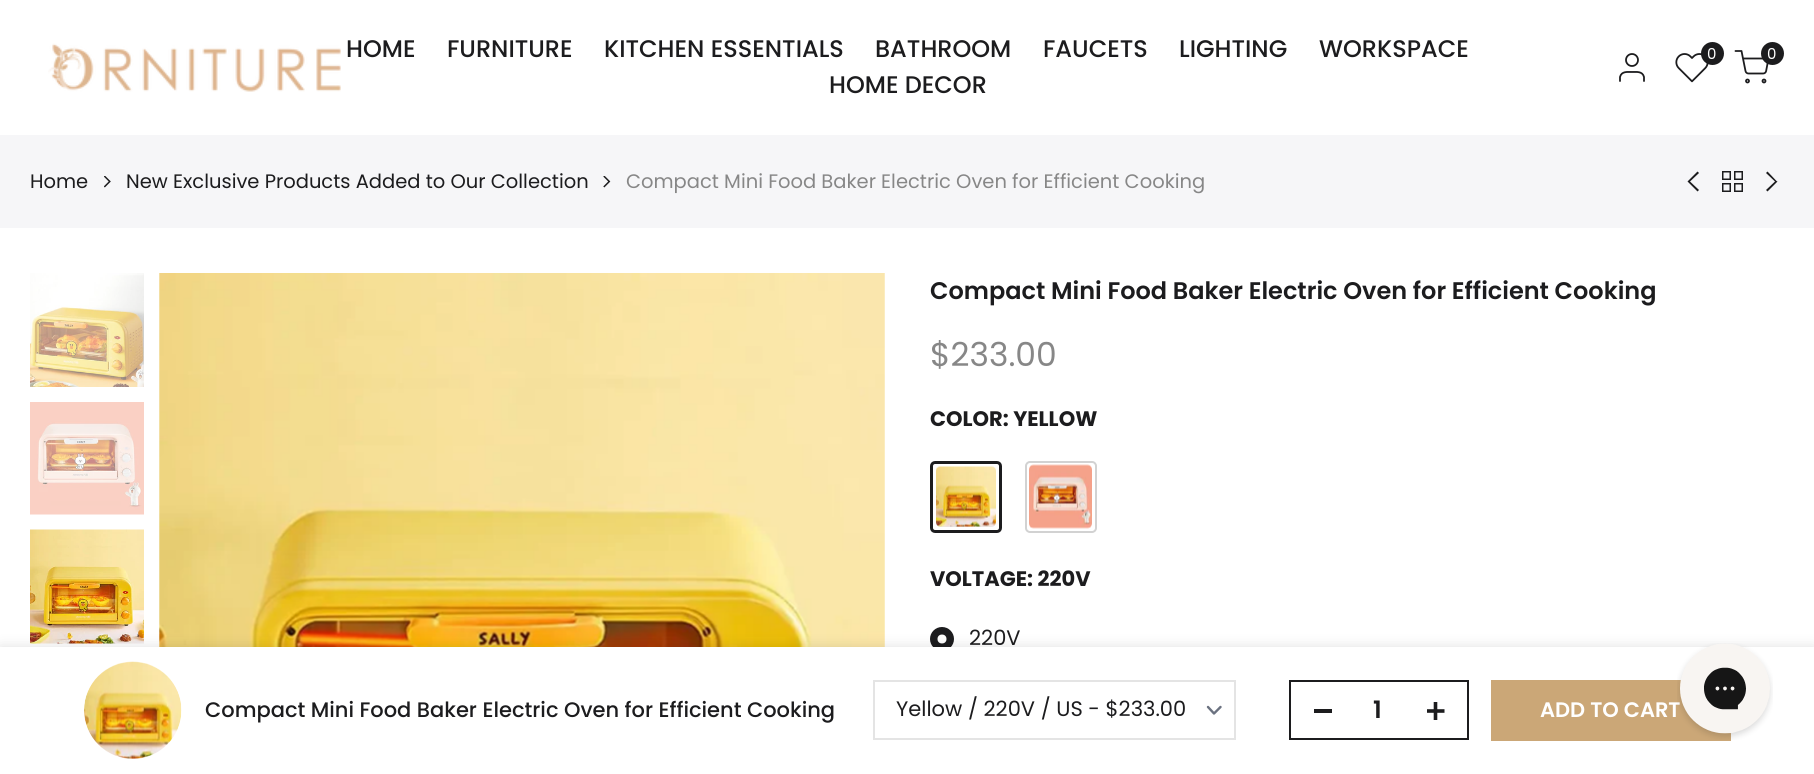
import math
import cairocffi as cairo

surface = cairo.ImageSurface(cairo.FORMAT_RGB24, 1814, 774)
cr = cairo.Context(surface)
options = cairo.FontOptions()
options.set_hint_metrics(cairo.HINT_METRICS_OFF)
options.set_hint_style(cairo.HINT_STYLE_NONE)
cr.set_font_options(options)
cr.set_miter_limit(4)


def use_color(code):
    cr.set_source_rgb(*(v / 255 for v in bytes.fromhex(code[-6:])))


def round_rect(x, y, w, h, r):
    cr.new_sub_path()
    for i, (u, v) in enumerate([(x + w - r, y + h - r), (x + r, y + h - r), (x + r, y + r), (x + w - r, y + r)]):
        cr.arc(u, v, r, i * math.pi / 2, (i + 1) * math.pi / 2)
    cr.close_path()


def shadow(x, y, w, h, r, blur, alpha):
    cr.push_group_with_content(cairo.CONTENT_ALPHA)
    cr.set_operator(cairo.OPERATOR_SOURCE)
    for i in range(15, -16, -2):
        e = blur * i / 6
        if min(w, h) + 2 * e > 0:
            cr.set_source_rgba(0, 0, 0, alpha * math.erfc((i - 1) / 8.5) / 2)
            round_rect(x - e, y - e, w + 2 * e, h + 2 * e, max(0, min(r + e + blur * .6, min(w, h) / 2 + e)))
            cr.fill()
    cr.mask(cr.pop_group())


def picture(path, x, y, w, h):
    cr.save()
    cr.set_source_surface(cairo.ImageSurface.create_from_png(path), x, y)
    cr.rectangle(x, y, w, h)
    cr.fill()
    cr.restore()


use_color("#ffffff")
cr.paint()
picture("img1.png", 48, 43, 293, 49)
cr.select_font_face("Poppins Medium")
cr.set_font_size(24)
use_color("#1c1c1e")
cr.move_to(346, 57)
cr.show_text("HOME")
cr.move_to(447, 57)
cr.show_text("FURNITURE")
cr.move_to(604, 57)
cr.show_text("KITCHEN ESSENTIALS")
cr.move_to(875, 57)
cr.show_text("BATHROOM")
cr.move_to(1043, 57)
cr.show_text("FAUCETS")
cr.move_to(1179, 57)
cr.show_text("LIGHTING")
cr.move_to(1319, 57)
cr.show_text("WORKSPACE")
cr.move_to(829, 93)
cr.show_text("HOME DECOR")
cr.new_path()
cr.move_to(1644, 81)
cr.line_to(1644, 77)
cr.curve_to(1642.5, 71, 1636.5, 72, 1632, 72)
cr.curve_to(1627.5, 72, 1621.5, 71, 1620, 77)
cr.line_to(1620, 81)
cr.set_line_width(1.8)
cr.set_line_cap(cairo.LINE_CAP_ROUND)
cr.set_line_join(cairo.LINE_JOIN_ROUND)
cr.stroke()
cr.arc(1632, 60, 6, 0, 2 * math.pi)
cr.set_line_cap(cairo.LINE_CAP_BUTT)
cr.set_line_join(cairo.LINE_JOIN_MITER)
cr.stroke()
picture("img2.png", 1675, 53, 34, 30)
cr.arc(1712.5, 53.5, 11.5, 0, 2 * math.pi)
cr.fill()
cr.select_font_face("Poppins")
cr.set_font_size(15)
use_color("#ffffff")
cr.move_to(1707, 59)
cr.show_text("0")
picture("img3.png", 1734, 50, 35, 34)
use_color("#1c1c1e")
cr.arc(1772.5, 53.5, 11.5, 0, 2 * math.pi)
cr.fill()
use_color("#ffffff")
cr.move_to(1767, 59)
cr.show_text("0")
use_color("#f6f6f8")
cr.rectangle(0, 135, 1814, 93)
cr.fill()
cr.set_font_size(19.5)
use_color("#1c1c1e")
cr.move_to(30, 188)
cr.show_text("Home")
picture("img4.png", 104, 176, 7, 12)
cr.move_to(126, 188)
cr.show_text("New Exclusive Products Added to Our Collection")
picture("img5.png", 603, 176, 8, 12)
use_color("#878787")
cr.move_to(626, 188)
cr.show_text("Compact Mini Food Baker Electric Oven for Efficient Cooking")
use_color("#1c1c1e")
cr.new_path()
cr.move_to(1697.5, 171.5)
cr.line_to(1687.5, 181.5)
cr.line_to(1697.5, 191.5)
cr.line_to(1699, 190)
cr.line_to(1690, 181.5)
cr.line_to(1699, 173)
cr.close_path()
cr.fill()
cr.rectangle(1722.75, 171.75, 7.5, 7.5)
cr.set_line_width(1.5)
cr.stroke()
cr.rectangle(1734.75, 171.75, 7.5, 7.5)
cr.stroke()
cr.rectangle(1734.75, 183.75, 7.5, 7.5)
cr.stroke()
cr.rectangle(1722.75, 183.75, 7.5, 7.5)
cr.stroke()
cr.new_path()
cr.move_to(1767.5, 171.5)
cr.line_to(1766, 173)
cr.line_to(1775, 181.5)
cr.line_to(1766, 190)
cr.line_to(1767.5, 191.5)
cr.line_to(1777.5, 181.5)
cr.line_to(1776.5, 181)
cr.close_path()
cr.fill()
picture("img6.png", 30, 273, 114, 114)
picture("img7.png", 30, 402, 114, 113)
picture("img8.png", 30, 529, 114, 115)
picture("img9.png", 159, 273, 726, 374)
cr.select_font_face("Poppins SemiBold")
cr.set_font_size(24)
cr.move_to(930, 299)
cr.show_text("Compact Mini Food Baker Electric Oven for Efficient Cooking")
cr.select_font_face("Poppins")
cr.set_font_size(33)
use_color("#878787")
cr.move_to(930, 366)
cr.show_text("$233.00")
cr.select_font_face("Poppins", cairo.FONT_SLANT_NORMAL, cairo.FONT_WEIGHT_BOLD)
cr.set_font_size(21)
use_color("#1c1c1e")
cr.move_to(930, 426)
cr.show_text("COLOR: YELLOW")
round_rect(931.5, 462.5, 69, 69, 3.5)
cr.set_line_width(3)
cr.stroke()
use_color("#e5e5e5")
round_rect(936, 467, 60, 60, 5)
cr.fill()
picture("img10.png", 936, 466, 60, 61)
round_rect(1026, 462, 70, 70, 4)
use_color("#d2d2d2")
cr.set_line_width(2)
cr.stroke()
picture("img11.png", 1029, 464, 63, 65)
use_color("#1c1c1e")
cr.move_to(930, 586)
cr.show_text("VOLTAGE: 220V")
cr.new_path()
cr.arc(942, 639, 12, 0, 2 * math.pi)
cr.fill()
use_color("#ffffff")
cr.arc(942, 639, 4.5, 0, 2 * math.pi)
cr.fill()
cr.select_font_face("Poppins")
use_color("#1c1c1e")
cr.move_to(969, 645)
cr.show_text("220V")
use_color("#000000")
shadow(0, 647, 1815, 127, 0, 7, 0.12)
use_color("#ffffff")
cr.rectangle(0, 647, 1814, 127)
cr.fill()
picture("img12.png", 84, 661, 98, 98)
cr.select_font_face("Poppins Medium")
use_color("#1c1c1e")
cr.move_to(205, 717)
cr.show_text("Compact Mini Food Baker Electric Oven for Efficient Cooking")
cr.new_path()
cr.move_to(1208, 707)
cr.line_to(1214, 713.5)
cr.line_to(1220.5, 707)
use_color("#6b7280")
cr.set_line_width(2.4)
cr.set_line_cap(cairo.LINE_CAP_ROUND)
cr.set_line_join(cairo.LINE_JOIN_ROUND)
cr.stroke()
cr.rectangle(874, 681, 361, 58)
use_color("#e4e4e4")
cr.set_line_width(2)
cr.set_line_cap(cairo.LINE_CAP_BUTT)
cr.set_line_join(cairo.LINE_JOIN_MITER)
cr.stroke()
cr.select_font_face("Poppins")
use_color("#1c1c1e")
cr.move_to(896, 716)
cr.show_text("Yellow / 220V / US - $233.00")
cr.rectangle(1290, 681, 178, 58)
cr.stroke()
cr.rectangle(1314, 709, 18, 4)
cr.fill()
cr.select_font_face("Poppins SemiBold")
cr.set_font_size(24)
cr.move_to(1373, 718)
cr.show_text("1")
picture("img13.png", 1427, 702, 18, 18)
use_color("#cba777")
cr.rectangle(1491, 680, 240, 61)
cr.fill()
cr.set_font_size(21)
use_color("#ffffff")
cr.move_to(1540, 717)
cr.show_text("ADD TO CART")
picture("img14.png", 1677, 643, 96, 97)
surface.write_to_png("result.png")
